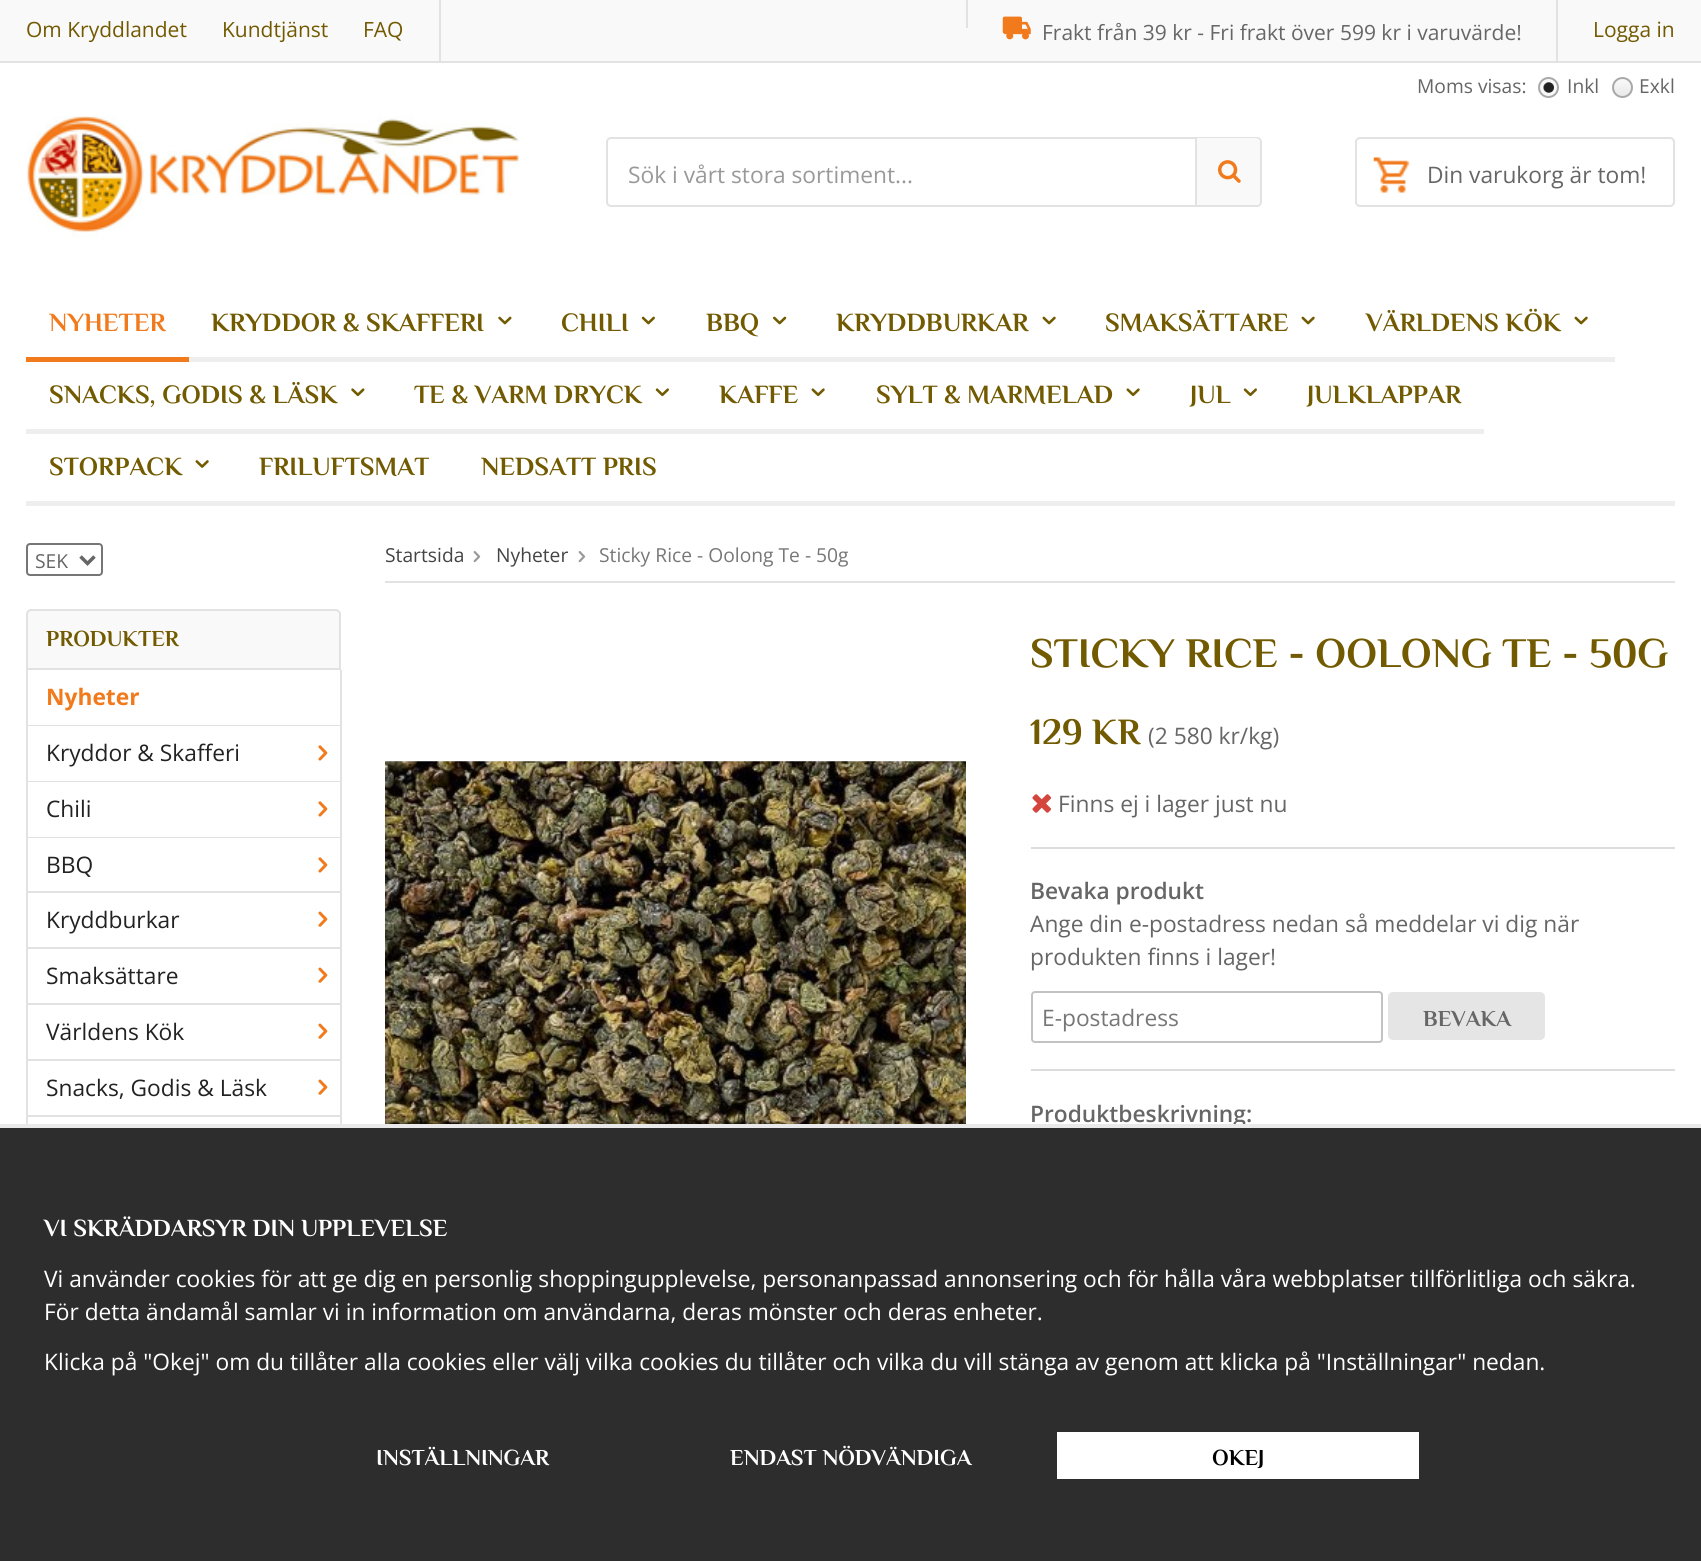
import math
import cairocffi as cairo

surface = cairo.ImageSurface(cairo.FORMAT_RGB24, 1701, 1561)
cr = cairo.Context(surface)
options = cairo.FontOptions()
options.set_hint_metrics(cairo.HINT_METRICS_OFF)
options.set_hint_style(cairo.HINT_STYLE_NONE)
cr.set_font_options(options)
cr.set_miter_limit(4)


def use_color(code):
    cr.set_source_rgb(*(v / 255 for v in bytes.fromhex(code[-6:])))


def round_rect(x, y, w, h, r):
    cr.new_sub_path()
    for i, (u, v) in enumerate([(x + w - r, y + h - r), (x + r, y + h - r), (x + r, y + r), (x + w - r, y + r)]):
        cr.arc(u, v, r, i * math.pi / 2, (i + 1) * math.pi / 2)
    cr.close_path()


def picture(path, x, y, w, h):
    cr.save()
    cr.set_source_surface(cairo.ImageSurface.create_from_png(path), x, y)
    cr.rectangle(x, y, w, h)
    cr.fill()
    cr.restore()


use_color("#ffffff")
cr.paint()
use_color("#f9f9f9")
cr.rectangle(0, 0, 1701, 61)
cr.fill()
use_color("#e2e2e2")
cr.rectangle(0, 61, 1701, 2)
cr.fill()
cr.select_font_face("Open Sans")
cr.set_font_size(21)
use_color("#725a01")
cr.move_to(26, 37)
cr.show_text("Om Kryddlandet")
cr.move_to(222, 37)
cr.show_text("Kundtjänst")
cr.move_to(363, 37)
cr.show_text("FAQ")
use_color("#e2e2e2")
cr.rectangle(1556, 0, 2, 61)
cr.fill()
cr.rectangle(439, 0, 2, 61)
cr.fill()
cr.rectangle(966, 0, 2, 28)
cr.fill()
picture("img1.png", 1002, 16, 29, 24)
use_color("#666666")
cr.move_to(1042, 40)
cr.show_text("Frakt från 39 kr - Fri frakt över 599 kr i varuvärde!")
use_color("#725a01")
cr.move_to(1593, 37)
cr.show_text("Logga in")
picture("img2.png", 27, 116, 492, 122)
round_rect(607, 138, 654, 68, 4)
use_color("#e2e2e2")
cr.stroke()
cr.set_font_size(22.75)
use_color("#999999")
cr.move_to(628, 183)
cr.show_text("Sök i vårt stora sortiment...")
use_color("#f9f9f9")
cr.new_path()
cr.move_to(1195, 138)
cr.line_to(1256, 138)
cr.curve_to(1258, 138, 1260, 140, 1260, 142)
cr.line_to(1260, 201)
cr.curve_to(1260, 203, 1258, 205, 1256, 205)
cr.line_to(1195, 205)
cr.close_path()
cr.fill()
use_color("#e2e2e2")
cr.rectangle(1195, 138, 2, 67)
cr.fill()
picture("img3.png", 1218, 160, 23, 23)
cr.set_font_size(19.25)
use_color("#666666")
cr.move_to(1417, 93)
cr.show_text("Moms visas:")
use_color("#f9f9f9")
cr.new_path()
cr.arc(1548.5, 87.5, 10.5, 0, 2 * math.pi)
cr.fill()
picture("img4.png", 1543, 82, 11, 11)
cr.arc(1548.5, 87.5, 9.5, 0, 2 * math.pi)
use_color("#a9a9a9")
cr.stroke()
use_color("#666666")
cr.move_to(1567, 93)
cr.show_text("Inkl")
cr.save()
round_rect(1612, 77, 21, 21, 10.5)
cr.clip()
gradient = cairo.LinearGradient(1622, 79, 1622, 96)
gradient.add_color_stop_rgba(0, 0.976, 0.976, 0.976, 1)
gradient.add_color_stop_rgba(1, 0.914, 0.914, 0.914, 1)
cr.set_source(gradient)
cr.rectangle(1612, 79, 21, 17)
cr.fill()
cr.restore()
cr.arc(1622.5, 87.5, 9.5, 0, 2 * math.pi)
use_color("#a9a9a9")
cr.stroke()
use_color("#666666")
cr.move_to(1639, 93)
cr.show_text("Exkl")
round_rect(1356, 138, 318, 68, 4)
use_color("#e2e2e2")
cr.stroke()
picture("img5.png", 1373, 157, 37, 36)
cr.set_font_size(22.75)
use_color("#666666")
cr.move_to(1427, 183)
cr.show_text("Din varukorg är tom!")
use_color("#eeeeee")
cr.rectangle(26, 501, 1649, 5)
cr.fill()
use_color("#f17a1c")
cr.rectangle(26, 357, 163, 5)
cr.fill()
cr.select_font_face("Philosopher", cairo.FONT_SLANT_NORMAL, cairo.FONT_WEIGHT_BOLD)
cr.set_font_size(26.25)
cr.move_to(49, 331)
cr.show_text("NYHETER")
use_color("#eeeeee")
cr.rectangle(189, 357, 1426, 5)
cr.fill()
use_color("#725a01")
cr.move_to(211, 331)
cr.show_text("KRYDDOR & SKAFFERI")
picture("img6.png", 498, 316, 14, 9)
cr.move_to(561, 331)
cr.show_text("CHILI")
picture("img7.png", 641, 316, 14, 9)
cr.move_to(706, 331)
cr.show_text("BBQ")
picture("img8.png", 773, 316, 14, 9)
cr.move_to(836, 331)
cr.show_text("KRYDDBURKAR")
picture("img9.png", 1042, 316, 14, 9)
cr.move_to(1105, 331)
cr.show_text("SMAKSÄTTARE")
picture("img9.png", 1301, 316, 14, 9)
cr.move_to(1366, 331)
cr.show_text("VÄRLDENS KÖK")
picture("img9.png", 1574, 316, 14, 9)
use_color("#eeeeee")
cr.rectangle(26, 429, 1259, 5)
cr.fill()
use_color("#725a01")
cr.move_to(49, 403)
cr.show_text("SNACKS, GODIS & LÄSK")
picture("img10.png", 351, 388, 14, 9)
cr.move_to(414, 403)
cr.show_text("TE & VARM DRYCK")
picture("img11.png", 655, 388, 14, 9)
cr.move_to(719, 403)
cr.show_text("KAFFE")
picture("img12.png", 811, 388, 14, 9)
cr.move_to(876, 403)
cr.show_text("SYLT & MARMELAD")
picture("img12.png", 1126, 388, 14, 9)
cr.move_to(1190, 403)
cr.show_text("JUL")
picture("img11.png", 1243, 388, 14, 9)
use_color("#eeeeee")
cr.rectangle(1285, 429, 199, 5)
cr.fill()
use_color("#725a01")
cr.move_to(1307, 403)
cr.show_text("JULKLAPPAR")
cr.move_to(49, 475)
cr.show_text("STORPACK")
picture("img13.png", 195, 460, 14, 8)
cr.move_to(259, 475)
cr.show_text("FRILUFTSMAT")
cr.move_to(481, 475)
cr.show_text("NEDSATT PRIS")
round_rect(27, 544, 75, 31, 3)
use_color("#767676")
cr.stroke()
cr.new_path()
cr.move_to(80.5, 556.5)
cr.line_to(87.5, 563.5)
cr.line_to(94.5, 556.5)
use_color("#666666")
cr.set_line_width(3.5)
cr.stroke()
cr.select_font_face("Open Sans")
cr.set_font_size(19.25)
cr.move_to(35, 568)
cr.show_text("SEK")
use_color("#f9f9f9")
cr.new_path()
cr.move_to(31, 610)
cr.line_to(336, 610)
cr.curve_to(338, 610, 340, 612, 340, 614)
cr.line_to(340, 669)
cr.line_to(27, 669)
cr.line_to(27, 614)
cr.curve_to(27, 612, 29, 610, 31, 610)
cr.close_path()
cr.fill_preserve()
use_color("#e2e2e2")
cr.set_line_width(2)
cr.stroke()
cr.select_font_face("Philosopher", cairo.FONT_SLANT_NORMAL, cairo.FONT_WEIGHT_BOLD)
cr.set_font_size(22.75)
use_color("#725a01")
cr.move_to(46, 646)
cr.show_text("PRODUKTER")
use_color("#e2e2e2")
cr.rectangle(340, 670, 2, 454)
cr.fill()
cr.rectangle(26, 670, 2, 454)
cr.fill()
cr.rectangle(28, 725, 312, 1)
cr.fill()
cr.select_font_face("Open Sans", cairo.FONT_SLANT_NORMAL, cairo.FONT_WEIGHT_BOLD)
use_color("#f17a1c")
cr.move_to(46, 705)
cr.show_text("Nyheter")
use_color("#e2e2e2")
cr.rectangle(28, 781, 312, 1)
cr.fill()
cr.select_font_face("Open Sans")
use_color("#222222")
cr.move_to(46, 761)
cr.show_text("Kryddor & Skafferi")
picture("img14.png", 318, 745, 10, 16)
use_color("#e2e2e2")
cr.rectangle(28, 837, 312, 1)
cr.fill()
use_color("#222222")
cr.move_to(46, 817)
cr.show_text("Chili")
picture("img14.png", 318, 801, 10, 16)
use_color("#e2e2e2")
cr.rectangle(28, 891, 312, 2)
cr.fill()
use_color("#222222")
cr.move_to(46, 873)
cr.show_text("BBQ")
picture("img14.png", 318, 857, 10, 16)
use_color("#e2e2e2")
cr.rectangle(28, 947, 312, 2)
cr.fill()
use_color("#222222")
cr.move_to(46, 928)
cr.show_text("Kryddburkar")
picture("img15.png", 318, 911, 10, 16)
use_color("#e2e2e2")
cr.rectangle(28, 1003, 312, 2)
cr.fill()
use_color("#222222")
cr.move_to(46, 984)
cr.show_text("Smaksättare")
picture("img15.png", 318, 967, 10, 16)
use_color("#e2e2e2")
cr.rectangle(28, 1059, 312, 2)
cr.fill()
use_color("#222222")
cr.move_to(46, 1040)
cr.show_text("Världens Kök")
picture("img15.png", 318, 1023, 10, 16)
use_color("#e2e2e2")
cr.rectangle(28, 1115, 312, 2)
cr.fill()
use_color("#222222")
cr.move_to(46, 1096)
cr.show_text("Snacks, Godis & Läsk")
picture("img15.png", 318, 1079, 10, 16)
use_color("#e2e2e2")
cr.rectangle(385, 581, 1290, 2)
cr.fill()
cr.set_font_size(19.25)
use_color("#444444")
cr.move_to(385, 562)
cr.show_text("Startsida")
picture("img16.png", 473, 551, 8, 12)
cr.move_to(496, 562)
cr.show_text("Nyheter")
picture("img16.png", 578, 551, 8, 12)
use_color("#777777")
cr.move_to(599, 562)
cr.show_text("Sticky Rice - Oolong Te - 50g")
picture("img17.png", 385, 761, 581, 363)
cr.select_font_face("Philosopher", cairo.FONT_SLANT_NORMAL, cairo.FONT_WEIGHT_BOLD)
cr.set_font_size(42)
use_color("#725a01")
cr.move_to(1030, 667)
cr.show_text("STICKY RICE - OOLONG TE - 50G")
cr.set_font_size(37)
cr.move_to(1030, 744)
cr.show_text("129 KR")
cr.select_font_face("Open Sans")
cr.set_font_size(22.75)
use_color("#666666")
cr.move_to(1148, 744)
cr.show_text("(2 580 kr/kg)")
picture("img18.png", 1032, 794, 19, 19)
cr.move_to(1058, 812)
cr.show_text("Finns ej i lager just nu")
use_color("#dcdcdc")
cr.rectangle(1031, 847, 644, 2)
cr.fill()
cr.rectangle(1031, 1069, 644, 2)
cr.fill()
cr.select_font_face("Open Sans SemiBold")
use_color("#666666")
cr.move_to(1030, 899)
cr.show_text("Bevaka produkt")
cr.select_font_face("Open Sans")
cr.move_to(1030, 932)
cr.show_text("Ange din e-postadress nedan så meddelar vi dig när")
cr.move_to(1030, 965)
cr.show_text("produkten finns i lager!")
round_rect(1032, 992, 350, 50, 3)
use_color("#c2c2c2")
cr.stroke()
use_color("#777777")
cr.move_to(1042, 1026)
cr.show_text("E-postadress")
use_color("#e5e5e5")
round_rect(1388, 992, 157, 48, 5)
cr.fill()
cr.select_font_face("Philosopher", cairo.FONT_SLANT_NORMAL, cairo.FONT_WEIGHT_BOLD)
use_color("#666666")
cr.move_to(1423, 1026)
cr.show_text("BEVAKA")
cr.select_font_face("Open Sans SemiBold")
cr.move_to(1030, 1122)
cr.show_text("Produktbeskrivning:")
use_color("#2d2d2d")
cr.rectangle(0, 1128, 1701, 433)
cr.fill()
use_color("#e9e9e9")
cr.rectangle(0, 1124, 1701, 4)
cr.fill()
cr.select_font_face("Philosopher", cairo.FONT_SLANT_NORMAL, cairo.FONT_WEIGHT_BOLD)
cr.set_font_size(24.5)
use_color("#ffffff")
cr.move_to(44, 1236)
cr.show_text("VI SKRÄDDARSYR DIN UPPLEVELSE")
cr.select_font_face("Open Sans")
cr.set_font_size(22.75)
cr.move_to(44, 1287)
cr.show_text("Vi använder cookies för att ge dig en personlig shoppingupplevelse, personanpassad annonsering och för hålla våra webbplatser tillförlitliga och säkra.")
cr.move_to(44, 1320)
cr.show_text("För detta ändamål samlar vi in information om användarna, deras mönster och deras enheter.")
cr.move_to(44, 1370)
cr.show_text("Klicka på \"Okej\" om du tillåter alla cookies eller välj vilka cookies du tillåter och vilka du vill stänga av genom att klicka på \"Inställningar\" nedan.")
cr.select_font_face("Philosopher", cairo.FONT_SLANT_NORMAL, cairo.FONT_WEIGHT_BOLD)
cr.move_to(376, 1465)
cr.show_text("INSTÄLLNINGAR")
cr.move_to(730, 1465)
cr.show_text("ENDAST NÖDVÄNDIGA")
cr.rectangle(1057, 1432, 362, 47)
cr.fill()
use_color("#000000")
cr.move_to(1212, 1465)
cr.show_text("OKEJ")
surface.write_to_png("result.png")
